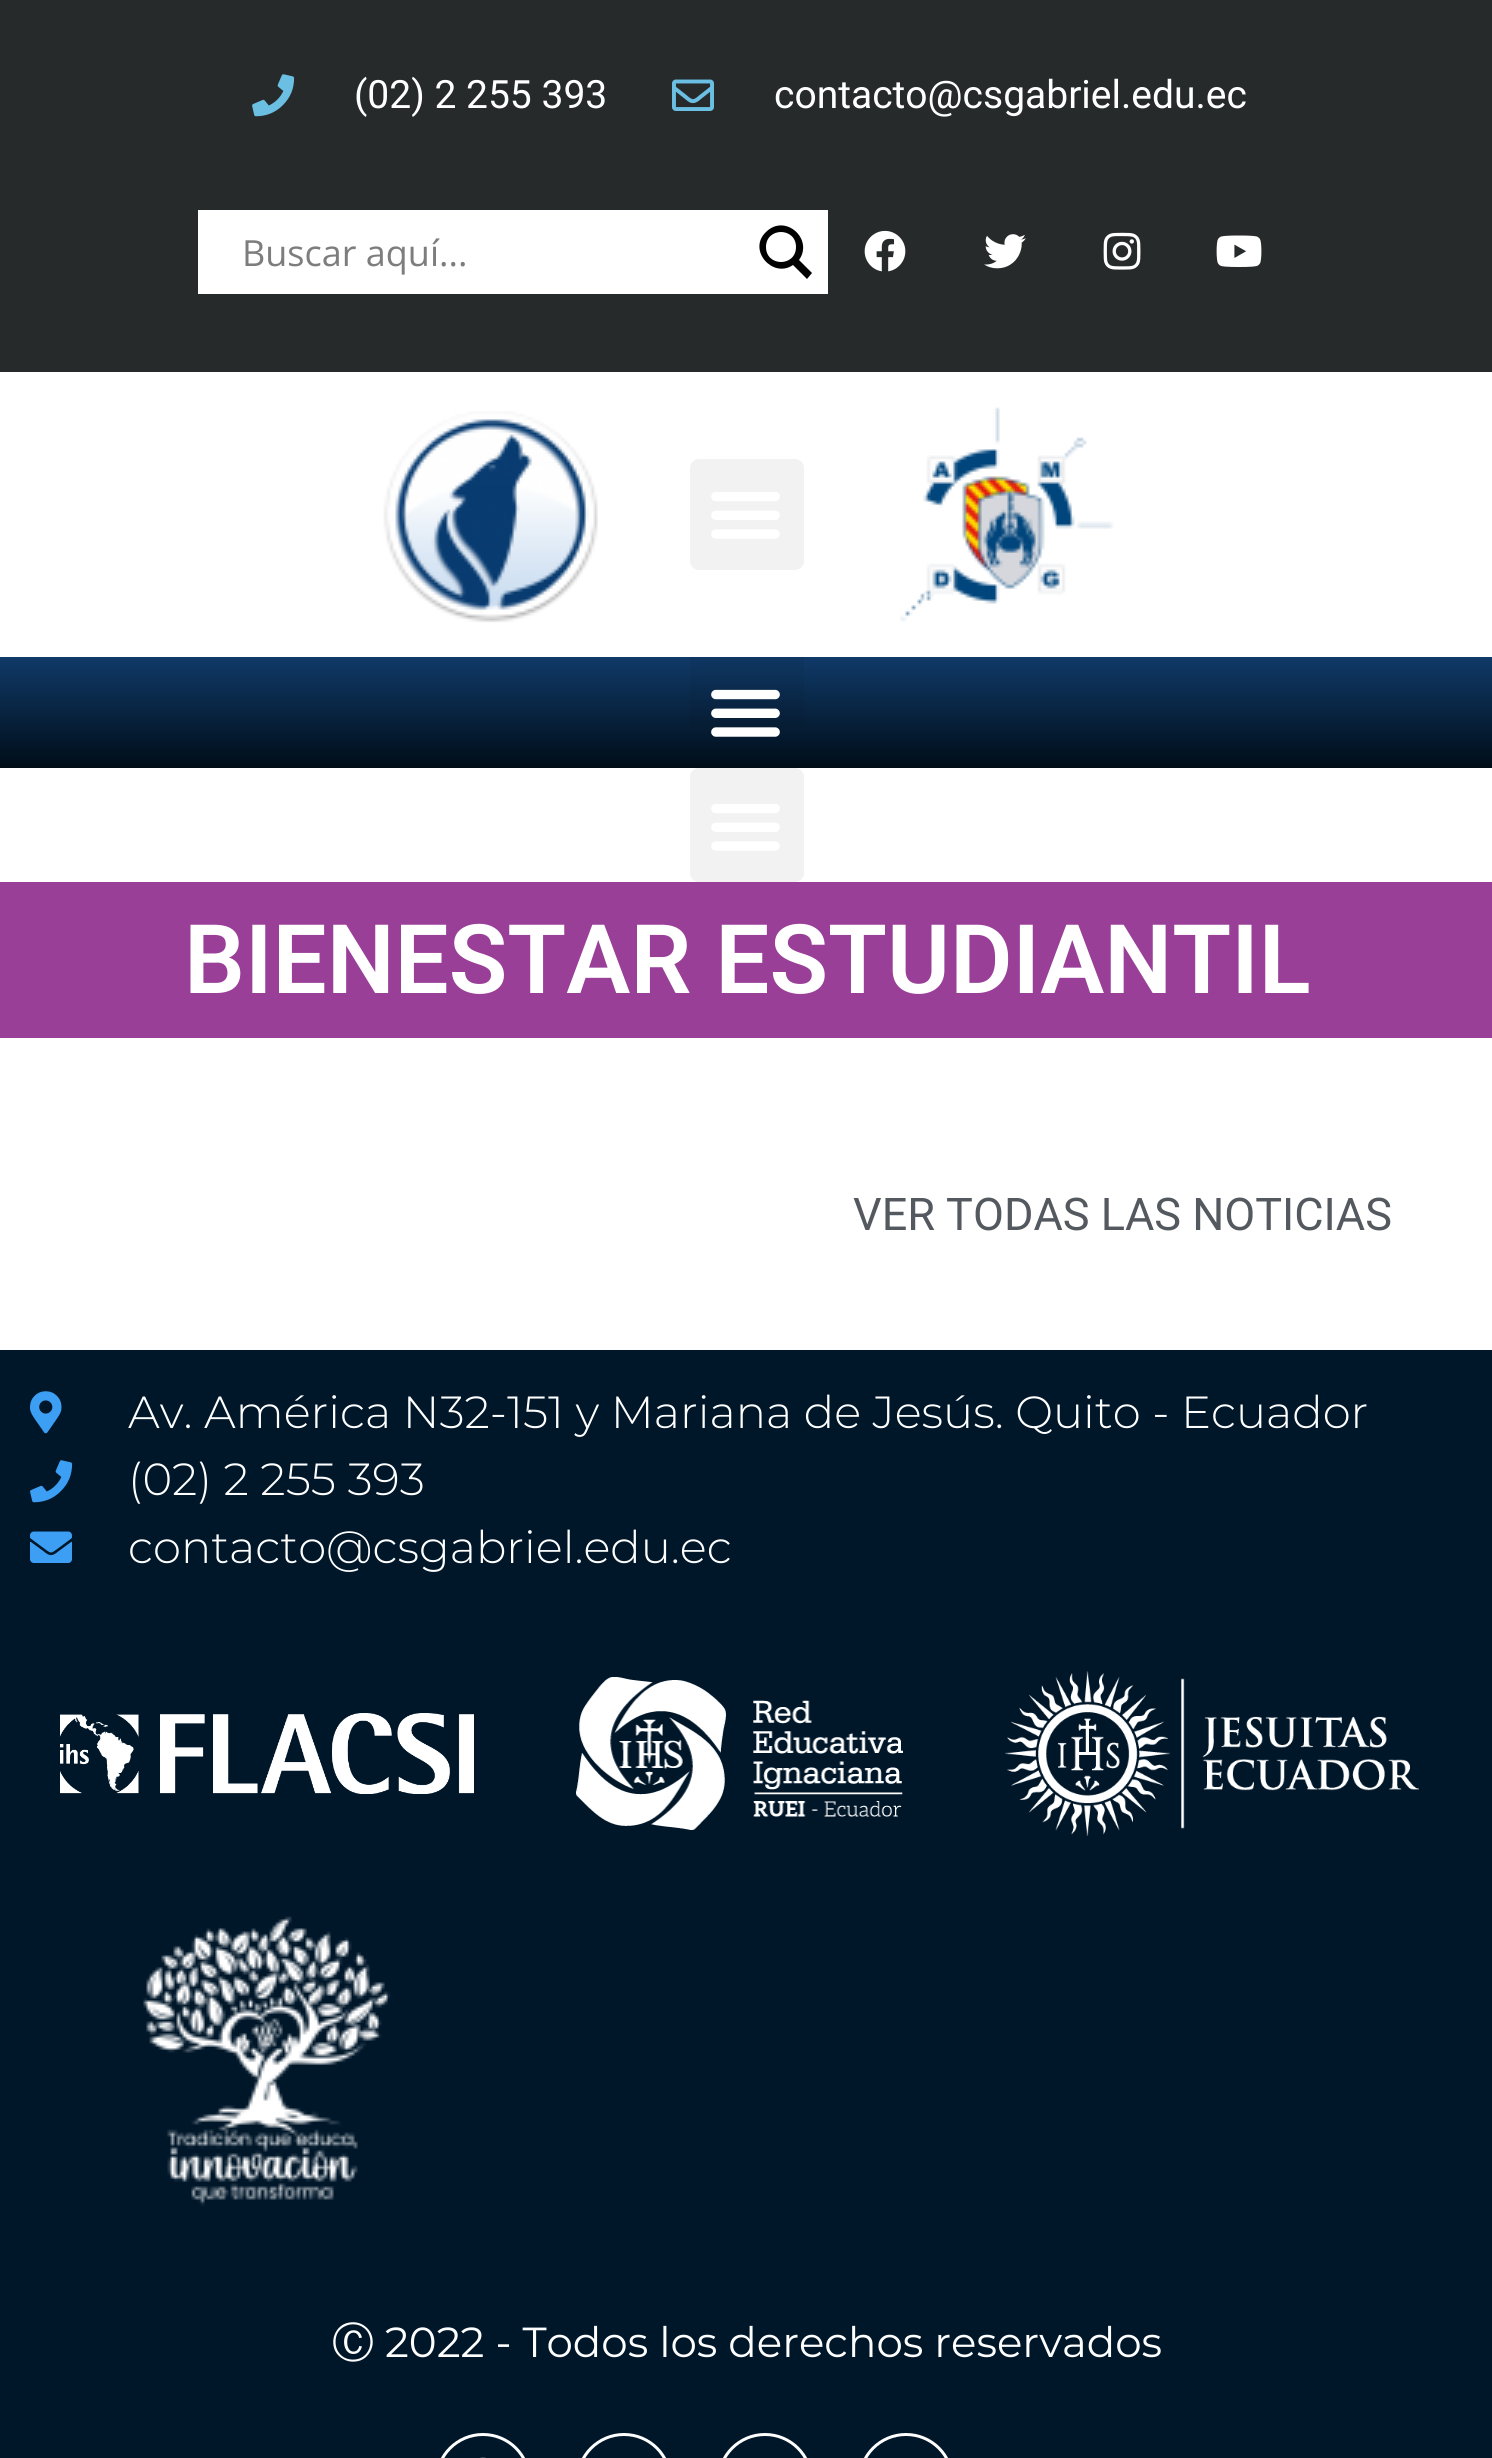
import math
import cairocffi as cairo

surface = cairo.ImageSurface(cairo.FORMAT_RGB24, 1492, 2458)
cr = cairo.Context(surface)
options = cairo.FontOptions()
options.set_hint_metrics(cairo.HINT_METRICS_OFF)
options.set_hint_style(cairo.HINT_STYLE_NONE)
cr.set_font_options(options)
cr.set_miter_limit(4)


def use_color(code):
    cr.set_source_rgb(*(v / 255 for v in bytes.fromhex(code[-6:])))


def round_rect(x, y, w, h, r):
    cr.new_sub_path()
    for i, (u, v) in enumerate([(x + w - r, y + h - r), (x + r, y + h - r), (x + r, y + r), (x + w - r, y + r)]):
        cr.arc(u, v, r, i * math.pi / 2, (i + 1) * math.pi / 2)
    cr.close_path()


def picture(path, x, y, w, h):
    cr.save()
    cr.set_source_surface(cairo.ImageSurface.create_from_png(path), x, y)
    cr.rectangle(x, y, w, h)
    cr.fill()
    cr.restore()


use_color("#ffffff")
cr.paint()
use_color("#262a2b")
cr.rectangle(0, 0, 1492, 372)
cr.fill()
picture("img1.png", 252, 74, 43, 43)
cr.select_font_face("Roboto")
cr.set_font_size(39)
use_color("#ffffff")
cr.move_to(354, 108)
cr.show_text("(02) 2 255 393")
picture("img2.png", 672, 79, 42, 32)
cr.move_to(774, 108)
cr.show_text("contacto@csgabriel.edu.ec")
cr.rectangle(198, 210, 630, 84)
cr.fill()
cr.select_font_face("Open Sans")
cr.set_font_size(36)
use_color("#7d7d7d")
cr.move_to(242, 266)
cr.show_text("Buscar aquí...")
use_color("#000000")
cr.new_path()
cr.move_to(812, 273)
cr.line_to(799, 260)
cr.curve_to(814, 239, 785, 213, 766, 232)
cr.curve_to(747, 250, 773, 279, 793, 265)
cr.line_to(807, 279)
cr.close_path()
cr.move_to(766, 247)
cr.curve_to(766, 227, 796, 227, 796, 247)
cr.curve_to(796, 267, 766, 267, 766, 247)
cr.close_path()
cr.fill()
picture("img3.png", 864, 230, 42, 42)
picture("img4.png", 984, 234, 42, 35)
picture("img5.png", 1103, 232, 38, 38)
picture("img6.png", 1216, 235, 46, 32)
picture("img7.png", 383, 411, 215, 212)
use_color("#f2f2f2")
round_rect(690, 459, 114, 111, 9)
cr.fill()
picture("img8.png", 711, 492, 69, 47)
picture("img9.png", 900, 407, 214, 215)
gradient = cairo.LinearGradient(747, 657, 747, 768)
gradient.add_color_stop_rgba(0, 0.063, 0.227, 0.408, 1)
gradient.add_color_stop_rgba(1, 0, 0.051, 0.094, 1)
cr.set_source(gradient)
cr.rectangle(0, 657, 1492, 111)
cr.fill()
cr.set_source_rgba(0, 0, 0, 0.05)
cr.rectangle(690, 657, 114, 71)
cr.fill()
picture("img10.png", 711, 689, 69, 48)
use_color("#f2f2f2")
round_rect(690, 768, 114, 114, 9)
cr.fill()
picture("img8.png", 711, 804, 69, 47)
use_color("#993f97")
cr.rectangle(0, 882, 1492, 156)
cr.fill()
cr.select_font_face("Roboto SemiBold")
cr.set_font_size(96)
use_color("#ffffff")
cr.move_to(184, 993)
cr.show_text("BIENESTAR ESTUDIANTIL")
cr.select_font_face("Roboto")
cr.set_font_size(45)
use_color("#54595f")
cr.move_to(853, 1230)
cr.show_text("VER TODAS LAS NOTICIAS")
use_color("#00172a")
cr.rectangle(0, 1350, 1492, 1108)
cr.fill()
picture("img11.png", 30, 1391, 32, 43)
cr.select_font_face("Montserrat Light")
use_color("#ffffff")
cr.move_to(128, 1428)
cr.show_text("Av. América N32-151 y Mariana de Jesús. Quito - Ecuador")
picture("img12.png", 30, 1460, 43, 43)
cr.move_to(128, 1495)
cr.show_text("(02) 2 255 393")
picture("img13.png", 30, 1531, 42, 32)
cr.move_to(128, 1563)
cr.show_text("contacto@csgabriel.edu.ec")
picture("img14.png", 60, 1713, 414, 81)
picture("img15.png", 576, 1677, 327, 153)
picture("img16.png", 1005, 1671, 414, 165)
picture("img17.png", 143, 1916, 248, 290)
cr.select_font_face("WenQuanYi Zen Hei Medium")
cr.set_font_size(42)
cr.move_to(332, 2357)
cr.show_text("Ⓒ")
cr.select_font_face("Montserrat")
cr.move_to(385, 2357)
cr.show_text("2022 - Todos los derechos reservados")
round_rect(436.5, 2434.5, 93, 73, 46.5)
cr.set_line_width(3)
cr.stroke()
picture("img18.png", 480, 2457, 6, 1)
round_rect(577.5, 2434.5, 93, 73, 46.5)
cr.stroke()
round_rect(718.5, 2434.5, 93, 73, 46.5)
cr.stroke()
round_rect(859.5, 2434.5, 93, 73, 46.5)
cr.stroke()
surface.write_to_png("result.png")
